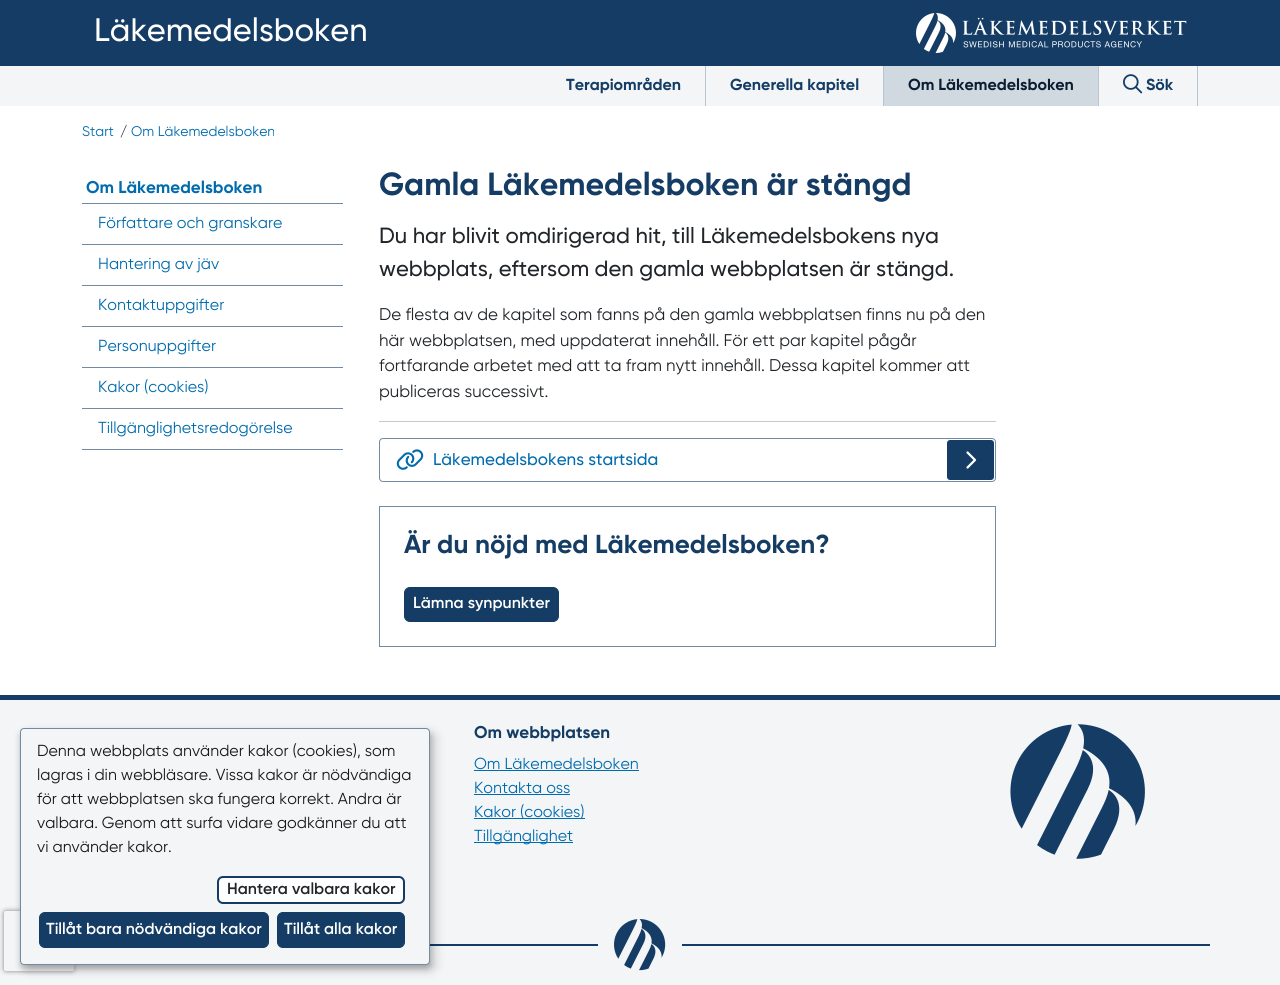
import math
import cairocffi as cairo

surface = cairo.ImageSurface(cairo.FORMAT_RGB24, 1280, 985)
cr = cairo.Context(surface)
options = cairo.FontOptions()
options.set_hint_metrics(cairo.HINT_METRICS_OFF)
options.set_hint_style(cairo.HINT_STYLE_NONE)
cr.set_font_options(options)
cr.set_miter_limit(4)


def use_color(code):
    cr.set_source_rgb(*(v / 255 for v in bytes.fromhex(code[-6:])))


def round_rect(x, y, w, h, r):
    cr.new_sub_path()
    for i, (u, v) in enumerate([(x + w - r, y + h - r), (x + r, y + h - r), (x + r, y + r), (x + w - r, y + r)]):
        cr.arc(u, v, r, i * math.pi / 2, (i + 1) * math.pi / 2)
    cr.close_path()


def shadow(x, y, w, h, r, blur, alpha):
    cr.push_group_with_content(cairo.CONTENT_ALPHA)
    cr.set_operator(cairo.OPERATOR_SOURCE)
    for i in range(15, -16, -2):
        e = blur * i / 6
        if min(w, h) + 2 * e > 0:
            cr.set_source_rgba(0, 0, 0, alpha * math.erfc((i - 1) / 8.5) / 2)
            round_rect(x - e, y - e, w + 2 * e, h + 2 * e, max(0, min(r + e + blur * .6, min(w, h) / 2 + e)))
            cr.fill()
    cr.mask(cr.pop_group())


def picture(path, x, y, w, h):
    cr.save()
    cr.set_source_surface(cairo.ImageSurface.create_from_png(path), x, y)
    cr.rectangle(x, y, w, h)
    cr.fill()
    cr.restore()


use_color("#ffffff")
cr.paint()
use_color("#143c64")
cr.rectangle(0, 0, 1280, 66)
cr.fill()
cr.select_font_face("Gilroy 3")
cr.set_font_size(32.5)
use_color("#ffffff")
cr.move_to(94, 41)
cr.show_text("Läkemedelsboken")
picture("img1.png", 916, 13, 271, 40)
use_color("#f3f5f7")
cr.rectangle(0, 66, 1280, 40)
cr.fill()
use_color("#b8c4d0")
cr.rectangle(705, 66, 1, 40)
cr.fill()
cr.select_font_face("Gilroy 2")
cr.set_font_size(16)
use_color("#143c64")
cr.move_to(566, 90)
cr.show_text("Terapiområden")
use_color("#b8c4d0")
cr.rectangle(883, 66, 1, 40)
cr.fill()
use_color("#143c64")
cr.move_to(730, 90)
cr.show_text("Generella kapitel")
use_color("#b8c4d0")
cr.rectangle(1098, 66, 1, 40)
cr.fill()
use_color("#d0d8e0")
cr.rectangle(884, 66, 214, 40)
cr.fill()
use_color("#0a1d31")
cr.move_to(908, 90)
cr.show_text("Om Läkemedelsboken")
use_color("#b8c4d0")
cr.rectangle(1197, 66, 1, 40)
cr.fill()
picture("img2.png", 1123, 74, 20, 20)
use_color("#143c64")
cr.move_to(1146, 90)
cr.show_text("Sök")
use_color("#f3f5f7")
cr.rectangle(0, 700, 1280, 285)
cr.fill()
use_color("#143c64")
cr.rectangle(430, 944, 780, 2)
cr.fill()
use_color("#000000")
shadow(25, 733, 410, 237, 4, 5, 0.19)
shadow(20, 732, 410, 237, 4, 3, 0.2)
cr.save()
cr.set_fill_rule(cairo.FILL_RULE_EVEN_ODD)
cr.new_path()
cr.move_to(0, 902)
cr.line_to(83, 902)
cr.line_to(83, 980)
cr.line_to(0, 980)
cr.close_path()
cr.move_to(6, 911)
cr.line_to(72, 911)
cr.curve_to(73, 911, 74, 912, 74, 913)
cr.line_to(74, 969)
cr.curve_to(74, 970, 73, 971, 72, 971)
cr.line_to(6, 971)
cr.curve_to(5, 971, 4, 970, 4, 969)
cr.line_to(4, 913)
cr.curve_to(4, 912, 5, 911, 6, 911)
cr.close_path()
cr.clip()
use_color("#808080")
shadow(4, 911, 70, 60, 2, 2.5, 1)
cr.restore()
use_color("#f3f5f7")
round_rect(20.5, 728.5, 409, 236, 3.5)
cr.fill_preserve()
use_color("#728aa2")
cr.set_line_width(1)
cr.stroke()
cr.select_font_face("Gilroy")
use_color("#191919")
cr.move_to(37, 756)
cr.show_text("Denna webbplats använder kakor (cookies), som")
cr.move_to(37, 780)
cr.show_text("lagras i din webbläsare. Vissa kakor är nödvändiga")
cr.move_to(37, 804)
cr.show_text("för att webbplatsen ska fungera korrekt. Andra är")
cr.move_to(37, 828)
cr.show_text("valbara. Genom att surfa vidare godkänner du att")
cr.move_to(37, 852)
cr.show_text("vi använder kakor.")
use_color("#ffffff")
round_rect(218, 877, 186, 26, 5)
cr.fill_preserve()
use_color("#143c64")
cr.set_line_width(2)
cr.stroke()
cr.select_font_face("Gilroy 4")
use_color("#212529")
cr.move_to(227, 894)
cr.show_text("Hantera valbara kakor")
use_color("#143c64")
round_rect(39.5, 912.5, 229, 35, 5.5)
cr.fill_preserve()
cr.set_line_width(1)
cr.stroke()
use_color("#ffffff")
cr.move_to(46, 934)
cr.show_text("Tillåt bara nödvändiga kakor")
use_color("#143c64")
round_rect(277.5, 912.5, 127, 35, 5.5)
cr.fill_preserve()
cr.stroke()
use_color("#ffffff")
cr.move_to(284, 934)
cr.show_text("Tillåt alla kakor")
cr.select_font_face("Gilroy")
cr.set_font_size(14)
use_color("#006bad")
cr.move_to(82, 136)
cr.show_text("Start")
use_color("#212529")
cr.move_to(120, 136)
cr.show_text("/")
use_color("#006bad")
cr.move_to(131, 136)
cr.show_text("Om Läkemedelsboken")
use_color("#728aa2")
cr.rectangle(82, 203, 261, 1)
cr.fill()
cr.select_font_face("Gilroy 2")
cr.set_font_size(17)
use_color("#006bad")
cr.move_to(86, 193)
cr.show_text("Om Läkemedelsboken")
use_color("#728aa2")
cr.rectangle(82, 244, 261, 1)
cr.fill()
cr.select_font_face("Gilroy")
cr.set_font_size(16)
use_color("#006bad")
cr.move_to(98, 228)
cr.show_text("Författare och granskare")
use_color("#728aa2")
cr.rectangle(82, 285, 261, 1)
cr.fill()
use_color("#006bad")
cr.move_to(98, 269)
cr.show_text("Hantering av jäv")
use_color("#728aa2")
cr.rectangle(82, 326, 261, 1)
cr.fill()
use_color("#006bad")
cr.move_to(98, 310)
cr.show_text("Kontaktuppgifter")
use_color("#728aa2")
cr.rectangle(82, 367, 261, 1)
cr.fill()
use_color("#006bad")
cr.move_to(98, 351)
cr.show_text("Personuppgifter")
use_color("#728aa2")
cr.rectangle(82, 408, 261, 1)
cr.fill()
use_color("#006bad")
cr.move_to(98, 392)
cr.show_text("Kakor (cookies)")
use_color("#728aa2")
cr.rectangle(82, 449, 261, 1)
cr.fill()
use_color("#006bad")
cr.move_to(98, 433)
cr.show_text("Tillgänglighetsredogörelse")
cr.select_font_face("Gilroy 2")
cr.set_font_size(32)
use_color("#143c64")
cr.move_to(379, 195)
cr.show_text("Gamla Läkemedelsboken är stängd")
cr.select_font_face("Gilroy 3")
cr.set_font_size(22)
use_color("#212529")
cr.move_to(379, 243)
cr.show_text("Du har blivit omdirigerad hit, till Läkemedelsbokens nya")
cr.move_to(379, 276)
cr.show_text("webbplats, eftersom den gamla webbplatsen är stängd.")
cr.select_font_face("Gilroy")
cr.set_font_size(17)
cr.move_to(379, 320)
cr.show_text("De flesta av de kapitel som fanns på den gamla webbplatsen finns nu på den")
cr.move_to(379, 346)
cr.show_text("här webbplatsen, med uppdaterat innehåll. För ett par kapitel pågår")
cr.move_to(379, 371)
cr.show_text("fortfarande arbetet med att ta fram nytt innehåll. Dessa kapitel kommer att")
cr.move_to(379, 397)
cr.show_text("publiceras successivt.")
use_color("#c8c9ca")
cr.rectangle(379, 421, 617, 1)
cr.fill()
round_rect(379.5, 438.5, 616, 43, 3.5)
use_color("#728aa2")
cr.stroke()
picture("img3.png", 396, 449, 28, 21)
cr.select_font_face("Gilroy 3")
use_color("#006bad")
cr.move_to(433, 465)
cr.show_text("Läkemedelsbokens startsida")
use_color("#143c64")
round_rect(946.5, 439.5, 48, 41, 3.5)
cr.fill_preserve()
use_color("#ffffff")
cr.stroke()
picture("img4.png", 966, 451, 11, 18)
cr.rectangle(379.5, 506.5, 616, 140)
use_color("#728aa2")
cr.stroke()
cr.select_font_face("Gilroy 2")
cr.set_font_size(26)
use_color("#143c64")
cr.move_to(404, 553)
cr.show_text("Är du nöjd med Läkemedelsboken?")
round_rect(404.5, 587.5, 154, 34, 5.5)
cr.fill_preserve()
cr.stroke()
cr.select_font_face("Gilroy 4")
cr.set_font_size(16)
use_color("#ffffff")
cr.move_to(413, 608)
cr.show_text("Lämna synpunkter")
use_color("#143c64")
cr.rectangle(0, 695, 1280, 5)
cr.fill()
cr.select_font_face("Gilroy 2")
cr.set_font_size(17)
cr.move_to(474, 738)
cr.show_text("Om webbplatsen")
cr.select_font_face("Gilroy")
cr.set_font_size(16)
use_color("#006bad")
cr.move_to(474, 769)
cr.show_text("Om Läkemedelsboken")
cr.rectangle(474, 770, 165, 1)
cr.fill()
cr.move_to(474, 793)
cr.show_text("Kontakta oss")
cr.rectangle(474, 794, 96, 1)
cr.fill()
cr.rectangle(474, 818, 111, 1)
cr.fill()
cr.move_to(474, 817)
cr.show_text("Kakor (cookies)")
cr.rectangle(474, 842, 99, 1)
cr.fill()
cr.move_to(474, 841)
cr.show_text("Tillgänglighet")
picture("img5.png", 1010, 724, 135, 135)
use_color("#f3f5f7")
cr.rectangle(598, 944, 84, 2)
cr.fill()
picture("img6.png", 614, 919, 52, 52)
surface.write_to_png("result.png")
